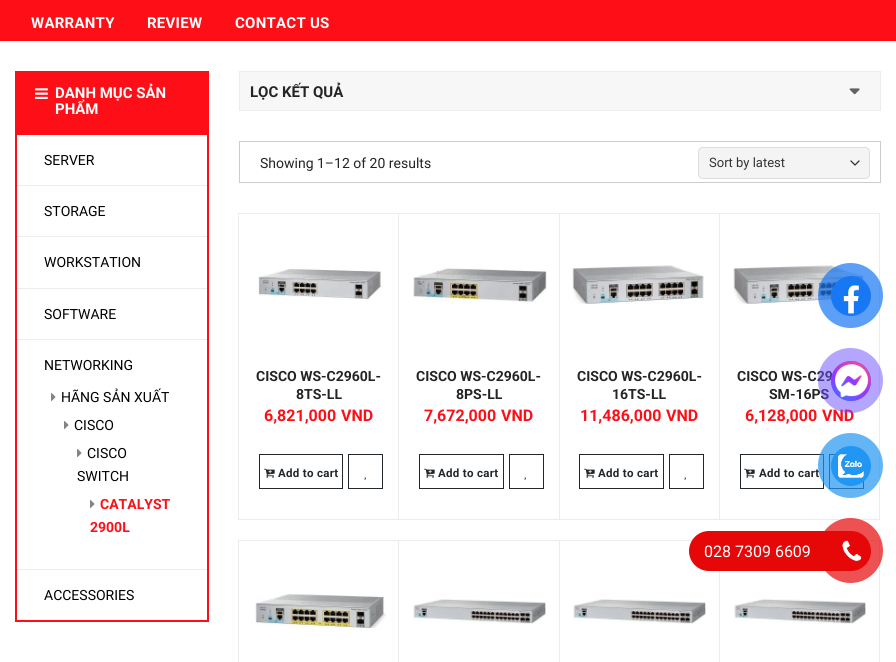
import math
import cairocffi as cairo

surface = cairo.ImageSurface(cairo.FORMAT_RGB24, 896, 662)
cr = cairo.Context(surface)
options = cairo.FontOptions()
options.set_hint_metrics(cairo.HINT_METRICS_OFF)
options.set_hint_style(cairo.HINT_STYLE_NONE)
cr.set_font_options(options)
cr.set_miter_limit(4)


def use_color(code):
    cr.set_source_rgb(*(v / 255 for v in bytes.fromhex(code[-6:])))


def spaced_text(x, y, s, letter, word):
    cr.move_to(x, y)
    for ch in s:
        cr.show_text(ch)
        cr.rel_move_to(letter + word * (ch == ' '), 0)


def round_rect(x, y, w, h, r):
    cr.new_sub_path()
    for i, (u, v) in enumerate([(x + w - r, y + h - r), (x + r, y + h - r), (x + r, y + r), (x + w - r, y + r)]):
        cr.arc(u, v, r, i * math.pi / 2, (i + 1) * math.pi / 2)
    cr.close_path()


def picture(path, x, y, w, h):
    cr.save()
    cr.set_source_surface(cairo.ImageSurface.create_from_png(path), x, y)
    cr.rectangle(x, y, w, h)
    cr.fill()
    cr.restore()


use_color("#ffffff")
cr.paint()
use_color("#fe0f17")
cr.rectangle(0, 0, 896, 41)
cr.fill()
cr.select_font_face("Roboto", cairo.FONT_SLANT_NORMAL, cairo.FONT_WEIGHT_BOLD)
cr.set_font_size(15)
use_color("#ffffff")
spaced_text(31, 28, "WARRANTY", 0.25, 0)
spaced_text(147, 28, "REVIEW", 0.25, 0)
spaced_text(235, 28, "CONTACT US", 0.25, 0)
use_color("#fe0f17")
cr.rectangle(15, 71, 194, 62)
cr.fill()
picture("img1.png", 35, 88, 13, 11)
use_color("#ffffff")
cr.move_to(55, 98)
cr.show_text("DANH MỤC SẢN")
cr.move_to(55, 114)
cr.show_text("PHẨM")
cr.rectangle(16, 134, 192, 487)
use_color("#fe0f17")
cr.stroke()
cr.select_font_face("Roboto")
cr.set_font_size(14)
use_color("#000000")
cr.move_to(44, 165)
cr.show_text("SERVER")
use_color("#ececec")
cr.rectangle(17, 185, 190, 1)
cr.fill()
use_color("#000000")
cr.move_to(44, 216)
cr.show_text("STORAGE")
use_color("#ececec")
cr.rectangle(17, 236, 190, 1)
cr.fill()
use_color("#000000")
cr.move_to(44, 267)
cr.show_text("WORKSTATION")
use_color("#ececec")
cr.rectangle(17, 288, 190, 1)
cr.fill()
use_color("#000000")
cr.move_to(44, 319)
cr.show_text("SOFTWARE")
use_color("#ececec")
cr.rectangle(17, 339, 190, 1)
cr.fill()
use_color("#000000")
cr.move_to(44, 370)
cr.show_text("NETWORKING")
picture("img2.png", 51, 393, 5, 8)
cr.move_to(61, 402)
cr.show_text("HÃNG SẢN XUẤT")
picture("img2.png", 64, 421, 5, 8)
cr.move_to(74, 430)
cr.show_text("CISCO")
picture("img2.png", 77, 449, 5, 8)
cr.move_to(87, 458)
cr.show_text("CISCO")
cr.move_to(77, 481)
cr.show_text("SWITCH")
picture("img2.png", 90, 500, 5, 8)
cr.select_font_face("Roboto", cairo.FONT_SLANT_NORMAL, cairo.FONT_WEIGHT_BOLD)
use_color("#fe0f17")
cr.move_to(100, 509)
cr.show_text("CATALYST")
cr.move_to(90, 532)
cr.show_text("2900L")
use_color("#ececec")
cr.rectangle(17, 569, 190, 1)
cr.fill()
cr.select_font_face("Roboto")
use_color("#000000")
cr.move_to(44, 600)
cr.show_text("ACCESSORIES")
use_color("#f7f7f7")
cr.rectangle(239.5, 71.5, 641, 39)
cr.fill_preserve()
use_color("#ececec")
cr.set_line_width(1)
cr.stroke()
cr.select_font_face("Roboto", cairo.FONT_SLANT_NORMAL, cairo.FONT_WEIGHT_BOLD)
cr.set_font_size(15)
use_color("#242424")
cr.move_to(250, 97)
cr.show_text("LỌC KẾT QUẢ")
picture("img3.png", 849, 88, 11, 7)
cr.rectangle(239.5, 141.5, 641, 41)
use_color("#cccccc")
cr.stroke()
cr.select_font_face("Roboto")
cr.set_font_size(14)
use_color("#242424")
cr.move_to(260, 168)
cr.show_text("Showing 1–12 of 20 results")
use_color("#f4f4f4")
round_rect(698, 147, 172, 32, 5)
cr.fill()
cr.new_path()
cr.move_to(851, 161)
cr.line_to(855, 165)
cr.line_to(859, 161)
use_color("#333333")
cr.set_line_width(1.3)
cr.set_line_cap(cairo.LINE_CAP_ROUND)
cr.set_line_join(cairo.LINE_JOIN_ROUND)
cr.stroke()
round_rect(698.5, 147.5, 171, 31, 4.5)
use_color("#dddddd")
cr.set_line_width(1)
cr.set_line_cap(cairo.LINE_CAP_BUTT)
cr.set_line_join(cairo.LINE_JOIN_MITER)
cr.stroke()
cr.set_font_size(13)
use_color("#333333")
cr.move_to(709, 167)
cr.show_text("Sort by latest")
cr.rectangle(238.5, 213.5, 160, 306)
use_color("#ececec")
cr.stroke()
picture("img4.png", 258, 268, 124, 32)
cr.select_font_face("Roboto", cairo.FONT_SLANT_NORMAL, cairo.FONT_WEIGHT_BOLD)
cr.set_font_size(14)
use_color("#242424")
cr.move_to(256, 381)
cr.show_text("CISCO WS-C2960L-")
cr.move_to(296, 399)
cr.show_text("8TS-LL")
cr.set_font_size(16)
use_color("#fe0f17")
cr.move_to(264, 421)
cr.show_text("6,821,000")
cr.move_to(341, 421)
cr.show_text("VND")
cr.rectangle(259.5, 454.5, 83, 34)
use_color("#23282d")
cr.stroke()
picture("img5.png", 264, 468, 11, 10)
cr.set_font_size(11.5)
spaced_text(278, 477, "Add to cart", 0.3, 0)
cr.rectangle(348.5, 454.5, 34, 34)
cr.stroke()
picture("img6.png", 364, 477, 2, 3)
cr.rectangle(398.5, 213.5, 161, 306)
use_color("#ececec")
cr.stroke()
picture("img7.png", 413, 268, 134, 35)
cr.set_font_size(14)
use_color("#242424")
cr.move_to(416, 381)
cr.show_text("CISCO WS-C2960L-")
cr.move_to(456, 399)
cr.show_text("8PS-LL")
cr.set_font_size(16)
use_color("#fe0f17")
cr.move_to(424, 421)
cr.show_text("7,672,000")
cr.move_to(501, 421)
cr.show_text("VND")
cr.rectangle(419.5, 454.5, 84, 34)
use_color("#23282d")
cr.stroke()
picture("img5.png", 424, 468, 11, 10)
cr.set_font_size(11.5)
spaced_text(438, 477, "Add to cart", 0.3, 0)
cr.rectangle(509.5, 454.5, 34, 34)
cr.stroke()
picture("img6.png", 524, 477, 2, 3)
cr.rectangle(559.5, 213.5, 160, 306)
use_color("#ececec")
cr.stroke()
picture("img8.png", 572, 265, 132, 39)
cr.set_font_size(14)
use_color("#242424")
cr.move_to(577, 381)
cr.show_text("CISCO WS-C2960L-")
cr.move_to(612, 399)
cr.show_text("16TS-LL")
cr.set_font_size(16)
use_color("#fe0f17")
cr.move_to(580, 421)
cr.show_text("11,486,000")
cr.move_to(666, 421)
cr.show_text("VND")
cr.rectangle(579.5, 454.5, 84, 34)
use_color("#23282d")
cr.stroke()
picture("img5.png", 584, 468, 11, 10)
cr.set_font_size(11.5)
spaced_text(598, 477, "Add to cart", 0.3, 0)
cr.rectangle(669.5, 454.5, 34, 34)
cr.stroke()
picture("img6.png", 684, 477, 2, 3)
cr.rectangle(719.5, 213.5, 160, 306)
use_color("#ececec")
cr.stroke()
picture("img9.png", 733, 265, 131, 39)
cr.set_font_size(14)
use_color("#242424")
cr.move_to(737, 381)
cr.show_text("CISCO WS-C29")
cr.move_to(769, 399)
cr.show_text("SM-16PS")
cr.set_font_size(16)
use_color("#fe0f17")
cr.move_to(745, 421)
cr.show_text("6,128,000")
cr.move_to(822, 421)
cr.show_text("VND")
cr.rectangle(740.5, 454.5, 83, 34)
use_color("#23282d")
cr.stroke()
picture("img5.png", 744, 468, 11, 10)
cr.set_font_size(11.5)
spaced_text(759, 477, "Add to cart", 0.3, 0)
cr.rectangle(829.5, 454.5, 34, 34)
cr.stroke()
cr.rectangle(238.5, 540.5, 160, 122)
use_color("#ececec")
cr.stroke()
picture("img10.png", 255, 594, 131, 37)
cr.rectangle(398.5, 540.5, 161, 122)
cr.stroke()
picture("img11.png", 413, 599, 133, 25)
cr.rectangle(559.5, 540.5, 160, 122)
cr.stroke()
picture("img12.png", 573, 599, 133, 25)
cr.rectangle(719.5, 540.5, 160, 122)
cr.stroke()
picture("img13.png", 734, 599, 132, 25)
cr.set_source_rgba(0.094, 0.467, 0.949, 0.7)
cr.arc(850.5, 295.5, 32.5, 0, 2 * math.pi)
cr.fill()
use_color("#1877f2")
cr.arc(851, 296, 20, 0, 2 * math.pi)
cr.fill()
picture("img14.png", 843, 285, 17, 29)
cr.set_source_rgba(0.416, 0.31, 0.996, 0.5)
cr.arc(850.5, 380.5, 32.5, 0, 2 * math.pi)
cr.fill()
use_color("#6a4ffe")
cr.arc(851, 381, 20, 0, 2 * math.pi)
cr.fill()
picture("img15.png", 831, 361, 40, 40)
cr.set_source_rgba(0.129, 0.588, 0.953, 0.7)
cr.arc(850.5, 465.5, 32.5, 0, 2 * math.pi)
cr.fill()
use_color("#2196f3")
cr.arc(851, 466, 20, 0, 2 * math.pi)
cr.fill()
picture("img16.png", 838, 454, 26, 24)
use_color("#e60808")
round_rect(689, 531, 177, 40, 20)
cr.fill()
cr.select_font_face("Roboto")
cr.set_font_size(16)
use_color("#ffffff")
cr.move_to(704, 557)
cr.show_text("028 7309 6609")
cr.set_source_rgba(0.902, 0.031, 0.031, 0.7)
cr.new_path()
cr.arc(850.5, 550.5, 32.5, 0, 2 * math.pi)
cr.fill()
use_color("#e60808")
cr.arc(851, 551, 20, 0, 2 * math.pi)
cr.fill()
picture("img17.png", 842, 540, 20, 21)
surface.write_to_png("result.png")
